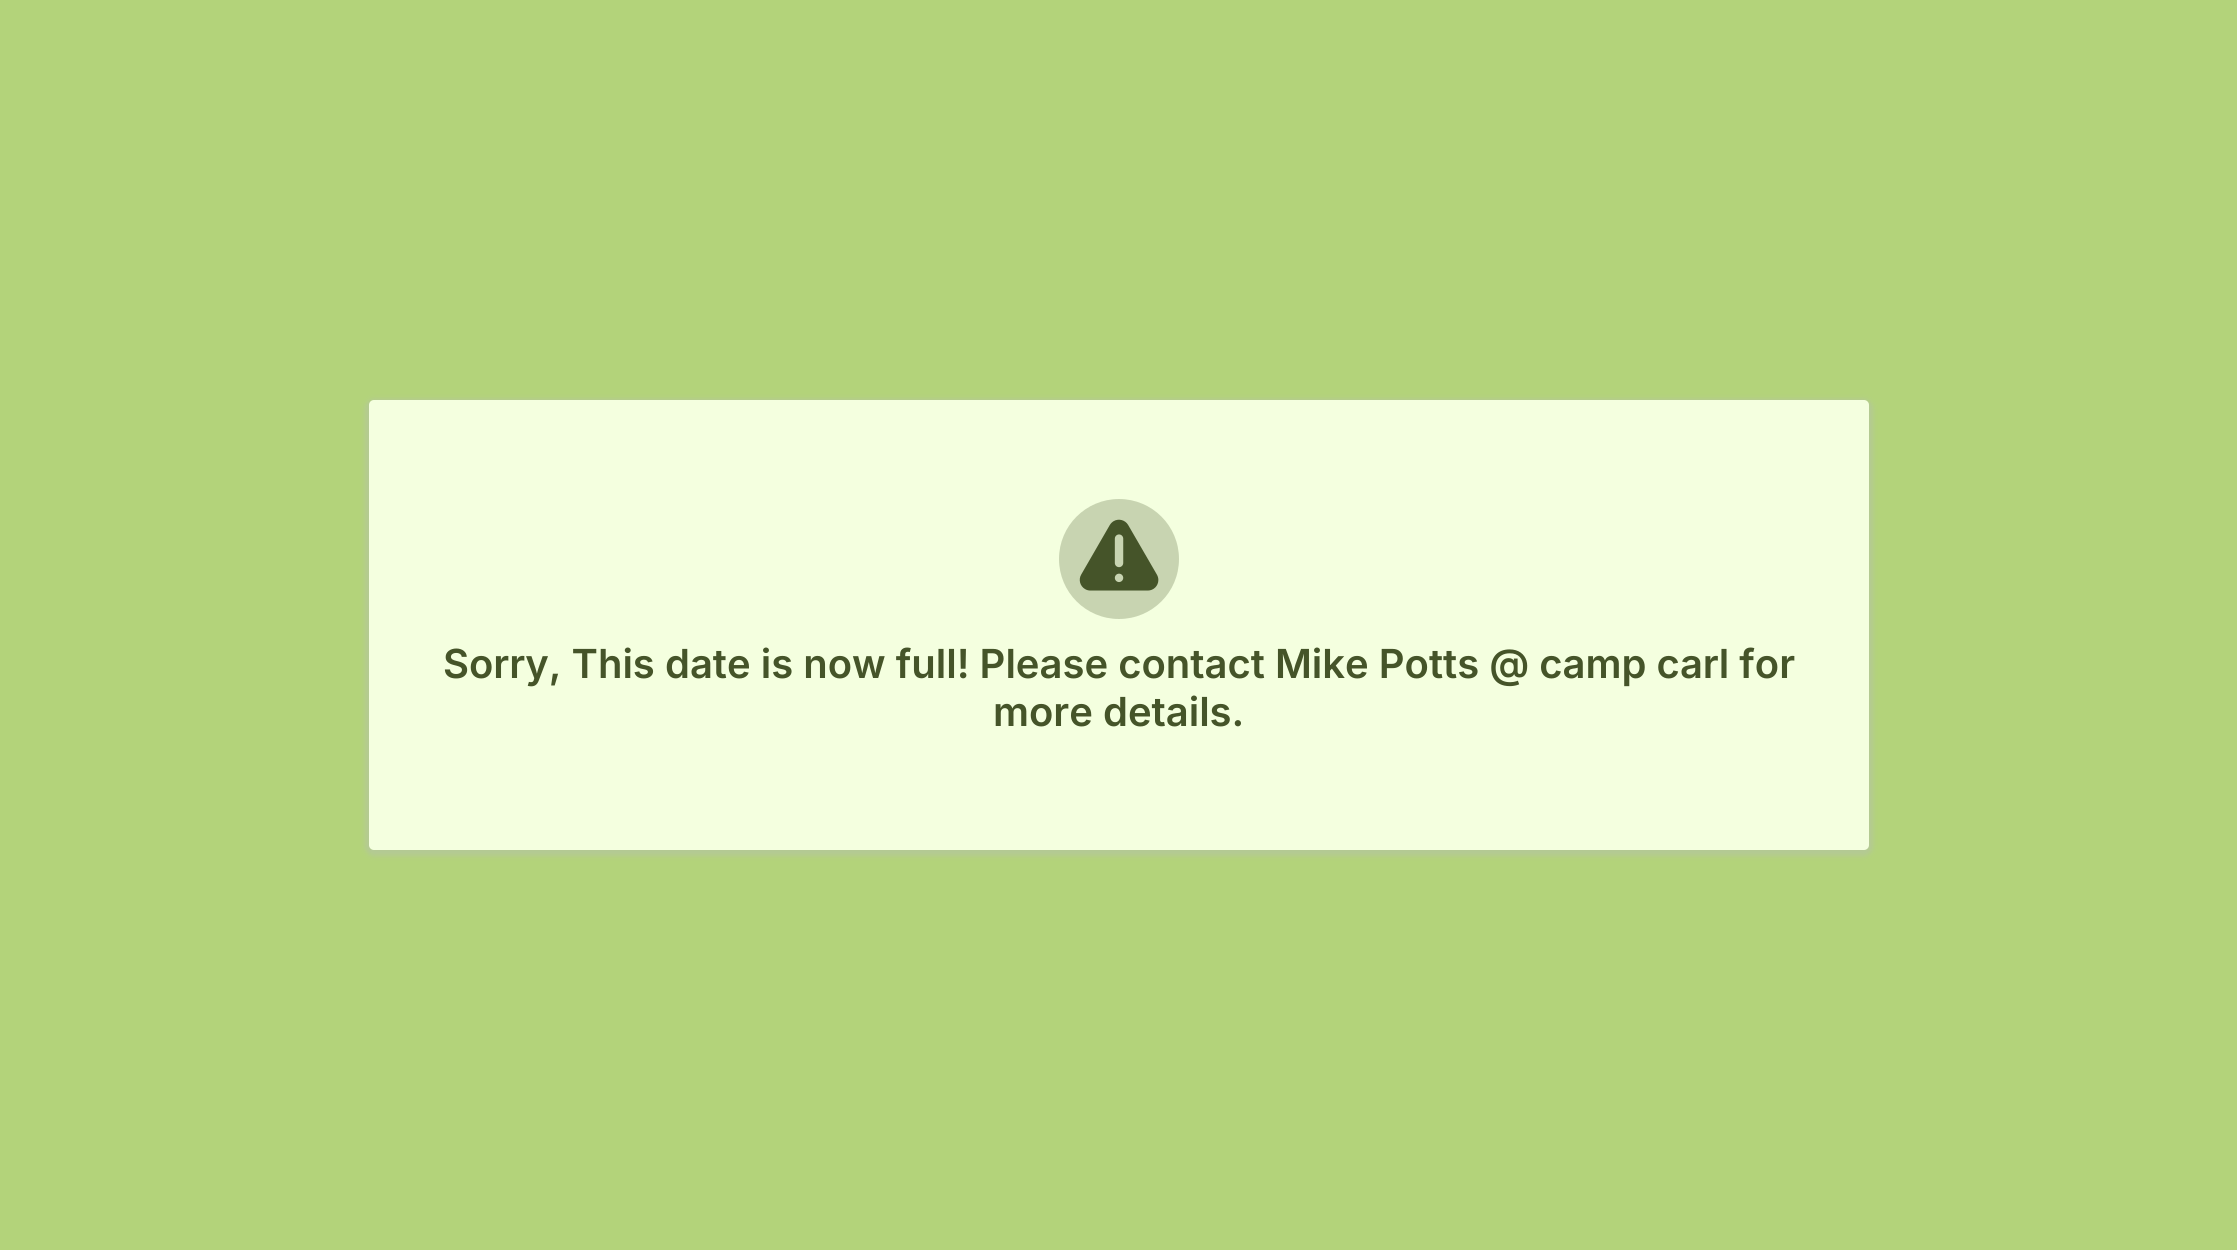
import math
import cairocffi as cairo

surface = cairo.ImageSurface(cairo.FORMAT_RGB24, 2237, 1250)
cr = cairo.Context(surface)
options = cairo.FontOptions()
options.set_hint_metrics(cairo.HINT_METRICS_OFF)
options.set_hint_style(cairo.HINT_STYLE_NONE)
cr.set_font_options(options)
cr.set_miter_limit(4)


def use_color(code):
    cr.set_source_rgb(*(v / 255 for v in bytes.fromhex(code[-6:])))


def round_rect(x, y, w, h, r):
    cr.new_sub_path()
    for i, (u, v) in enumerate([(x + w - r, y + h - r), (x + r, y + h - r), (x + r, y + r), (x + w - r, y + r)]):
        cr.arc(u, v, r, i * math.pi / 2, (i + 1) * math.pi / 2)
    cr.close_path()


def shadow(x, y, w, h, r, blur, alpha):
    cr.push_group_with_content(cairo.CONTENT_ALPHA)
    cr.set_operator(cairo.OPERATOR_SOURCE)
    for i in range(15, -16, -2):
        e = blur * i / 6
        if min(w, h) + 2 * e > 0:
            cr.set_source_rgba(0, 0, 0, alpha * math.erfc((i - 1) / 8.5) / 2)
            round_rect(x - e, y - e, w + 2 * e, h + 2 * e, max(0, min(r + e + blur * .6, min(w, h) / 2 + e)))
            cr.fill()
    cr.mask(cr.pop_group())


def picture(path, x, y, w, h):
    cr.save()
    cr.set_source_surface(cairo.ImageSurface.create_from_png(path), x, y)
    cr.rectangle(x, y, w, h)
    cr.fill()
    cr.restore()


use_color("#b3d37a")
cr.paint()
use_color("#b5b6c9")
shadow(365, 399, 1508, 457, 9, 2.5, 0.33)
use_color("#f4ffdf")
round_rect(369, 400, 1500, 450, 5)
cr.fill()
picture("img1.png", 1059, 499, 120, 120)
cr.select_font_face("Inter SemiBold")
cr.set_font_size(40)
use_color("#455429")
cr.move_to(443, 678)
cr.show_text("Sorry, This date is now full! Please contact Mike Potts @ camp carl for")
cr.move_to(993, 726)
cr.show_text("more details.")
surface.write_to_png("result.png")
